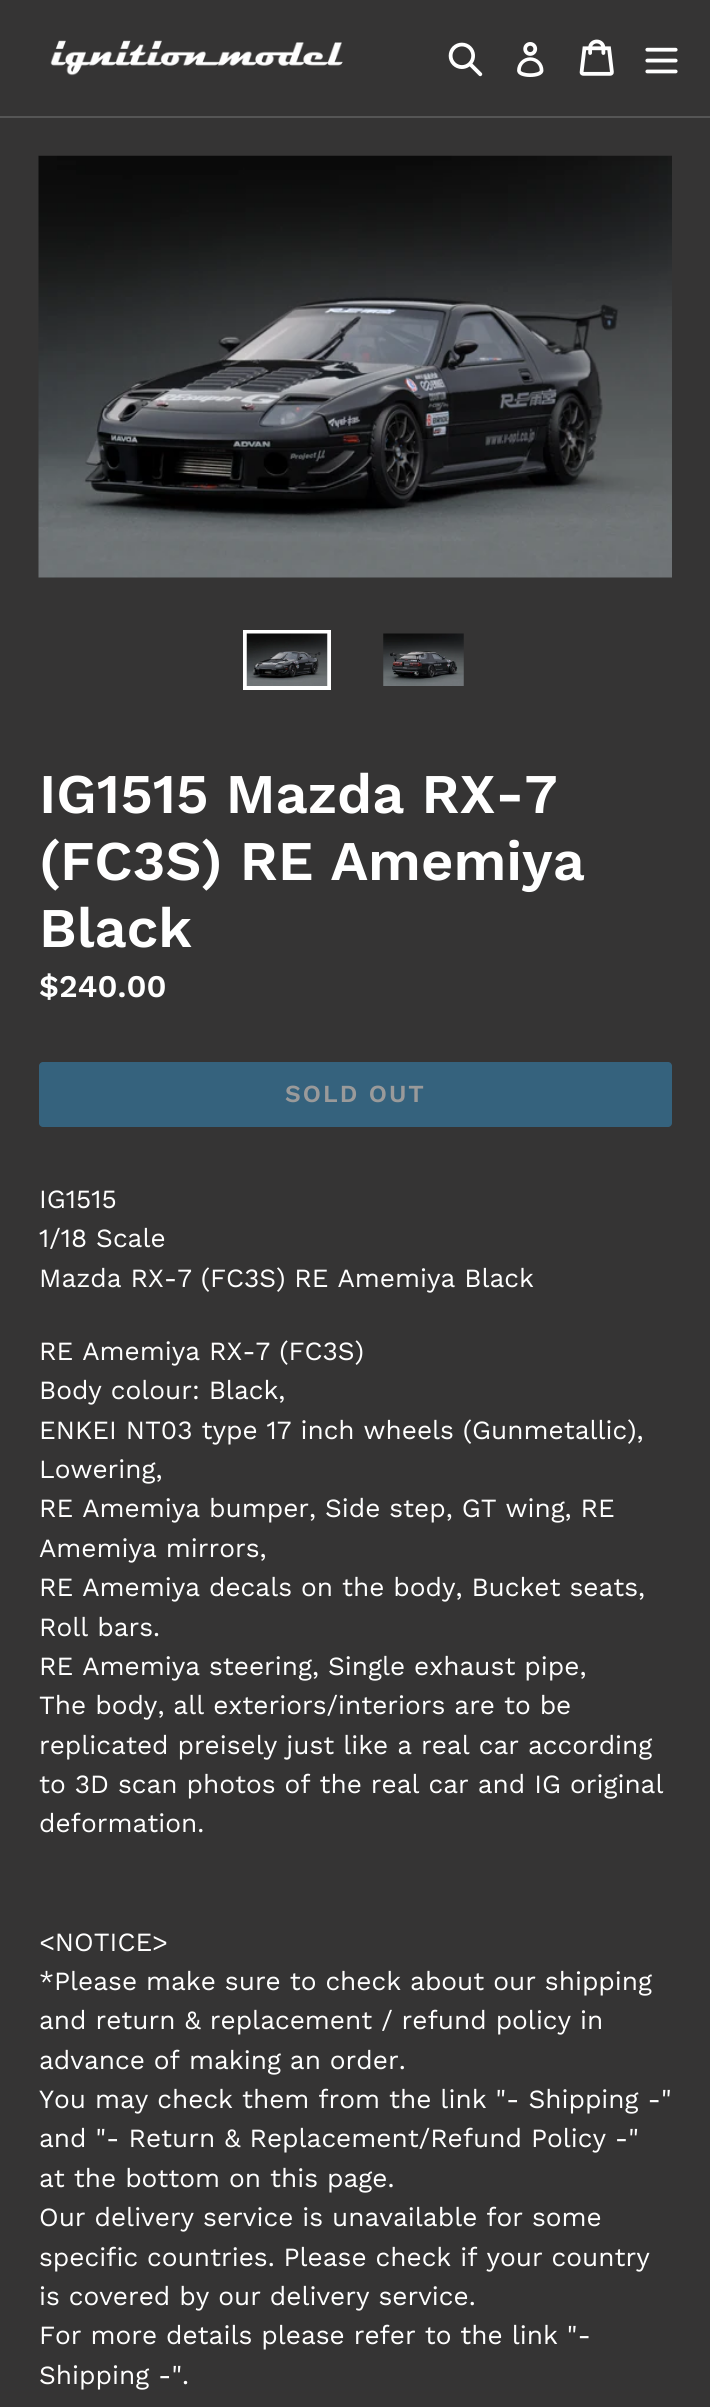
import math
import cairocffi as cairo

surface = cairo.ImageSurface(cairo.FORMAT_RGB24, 710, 2407)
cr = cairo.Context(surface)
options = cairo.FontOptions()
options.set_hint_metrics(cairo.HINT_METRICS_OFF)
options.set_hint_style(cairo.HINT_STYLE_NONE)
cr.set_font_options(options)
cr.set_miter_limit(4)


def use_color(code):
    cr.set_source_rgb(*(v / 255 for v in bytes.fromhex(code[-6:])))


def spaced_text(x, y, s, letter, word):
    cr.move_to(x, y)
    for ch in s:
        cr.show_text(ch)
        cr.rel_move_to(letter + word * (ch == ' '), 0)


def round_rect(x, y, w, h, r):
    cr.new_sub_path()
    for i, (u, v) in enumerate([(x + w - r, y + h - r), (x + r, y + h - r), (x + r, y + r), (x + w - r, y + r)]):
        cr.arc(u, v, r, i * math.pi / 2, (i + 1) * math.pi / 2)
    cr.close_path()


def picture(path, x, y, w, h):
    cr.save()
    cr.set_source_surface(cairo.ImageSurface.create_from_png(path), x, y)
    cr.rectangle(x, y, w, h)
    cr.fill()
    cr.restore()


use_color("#353434")
cr.paint()
use_color("#555555")
cr.rectangle(0, 116, 710, 2)
cr.fill()
picture("img1.png", 50, 40, 293, 36)
picture("img2.png", 448, 42, 35, 35)
picture("img3.png", 517, 42, 27, 35)
picture("img4.png", 579, 39, 35, 37)
picture("img5.png", 645, 47, 33, 27)
picture("img6.png", 38, 155, 634, 423)
cr.rectangle(245, 632, 84, 56)
use_color("#ffffff")
cr.set_line_width(4)
cr.stroke()
picture("img7.png", 246, 633, 82, 53)
picture("img8.png", 383, 633, 81, 53)
cr.select_font_face("Work Sans SemiBold")
cr.set_font_size(56)
cr.move_to(39, 813)
cr.show_text("IG1515 Mazda RX-7")
cr.move_to(39, 880)
cr.show_text("(FC3S) RE Amemiya")
cr.move_to(39, 947)
cr.show_text("Black")
cr.set_font_size(31.5)
cr.move_to(39, 997)
cr.show_text("$240.00")
use_color("#35627d")
round_rect(39, 1062, 633, 65, 4)
cr.fill()
cr.set_font_size(24.5)
use_color("#9a9a9a")
spaced_text(285, 1102, "SOLD OUT", 2, 0)
cr.select_font_face("Work Sans")
cr.set_font_size(26.25)
use_color("#ffffff")
cr.move_to(39, 1208)
cr.show_text("IG1515")
cr.move_to(39, 1247)
cr.show_text("1/18 Scale")
cr.move_to(39, 1287)
cr.show_text("Mazda RX-7 (FC3S) RE Amemiya Black")
cr.move_to(39, 1360)
cr.show_text("RE Amemiya RX-7 (FC3S)")
cr.move_to(39, 1399)
cr.show_text("Body colour: Black,")
cr.move_to(39, 1439)
cr.show_text("ENKEI NT03 type 17 inch wheels (Gunmetallic),")
cr.move_to(39, 1478)
cr.show_text("Lowering,")
cr.move_to(39, 1517)
cr.show_text("RE Amemiya bumper, Side step, GT wing, RE")
cr.move_to(39, 1557)
cr.show_text("Amemiya mirrors,")
cr.move_to(39, 1596)
cr.show_text("RE Amemiya decals on the body, Bucket seats,")
cr.move_to(39, 1636)
cr.show_text("Roll bars.")
cr.move_to(39, 1675)
cr.show_text("RE Amemiya steering, Single exhaust pipe,")
cr.move_to(39, 1714)
cr.show_text("The body, all exteriors/interiors are to be")
cr.move_to(39, 1754)
cr.show_text("replicated preisely just like a real car according")
cr.move_to(39, 1793)
cr.show_text("to 3D scan photos of the real car and IG original")
cr.move_to(39, 1832)
cr.show_text("deformation.")
cr.move_to(39, 1951)
cr.show_text("<NOTICE>")
cr.move_to(39, 1990)
cr.show_text("*Please make sure to check about our shipping")
cr.move_to(39, 2029)
cr.show_text("and return & replacement / refund policy in")
cr.move_to(39, 2069)
cr.show_text("advance of making an order.")
cr.move_to(39, 2108)
cr.show_text("You may check them from the link \"- Shipping -\"")
cr.move_to(39, 2147)
cr.show_text("and \"- Return & Replacement/Refund Policy -\"")
cr.move_to(39, 2187)
cr.show_text("at the bottom on this page.")
cr.move_to(39, 2226)
cr.show_text("Our delivery service is unavailable for some")
cr.move_to(39, 2266)
cr.show_text("specific countries. Please check if your country")
cr.move_to(39, 2305)
cr.show_text("is covered by our delivery service.")
cr.move_to(39, 2344)
cr.show_text("For more details please refer to the link \"-")
cr.move_to(39, 2384)
cr.show_text("Shipping -\".")
surface.write_to_png("result.png")
